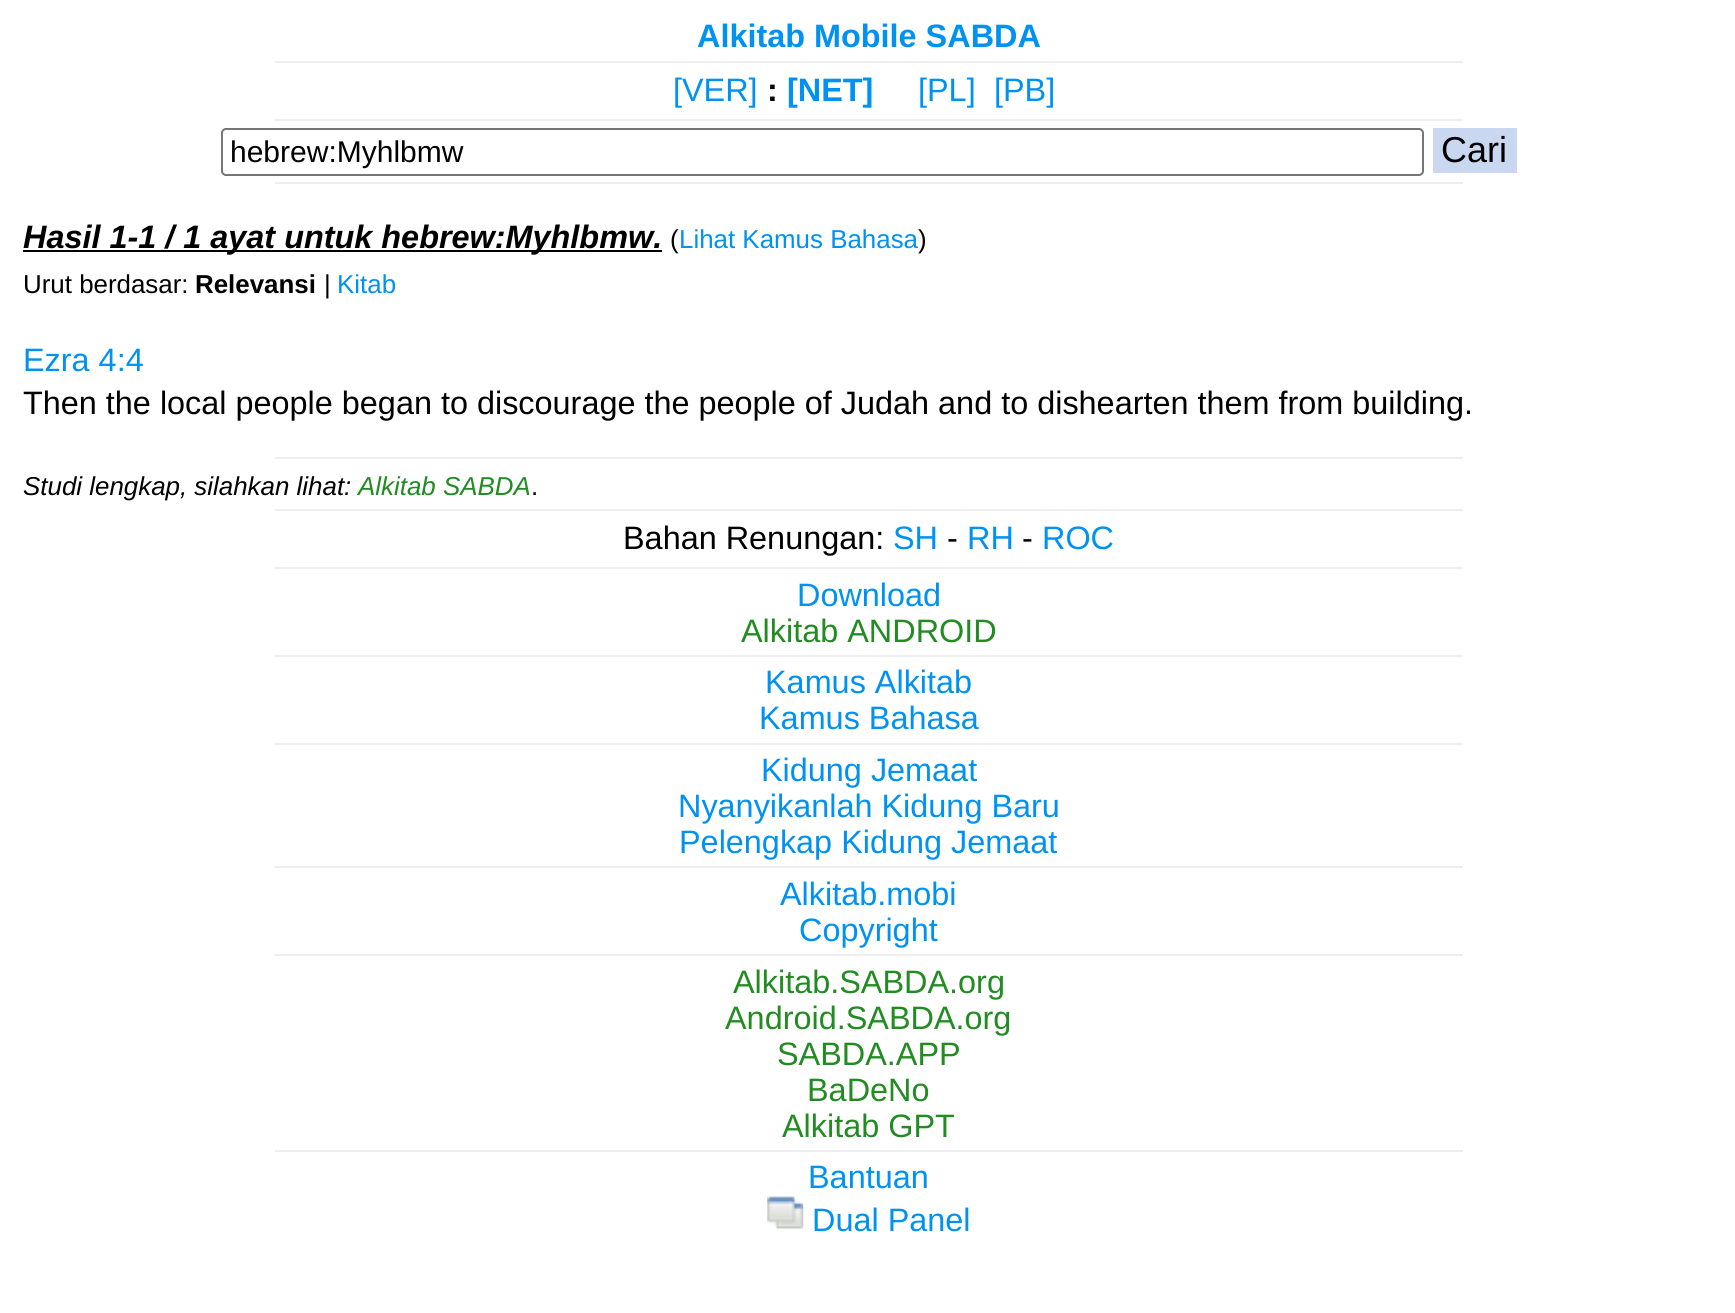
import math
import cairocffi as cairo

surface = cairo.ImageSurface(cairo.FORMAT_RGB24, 1735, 1313)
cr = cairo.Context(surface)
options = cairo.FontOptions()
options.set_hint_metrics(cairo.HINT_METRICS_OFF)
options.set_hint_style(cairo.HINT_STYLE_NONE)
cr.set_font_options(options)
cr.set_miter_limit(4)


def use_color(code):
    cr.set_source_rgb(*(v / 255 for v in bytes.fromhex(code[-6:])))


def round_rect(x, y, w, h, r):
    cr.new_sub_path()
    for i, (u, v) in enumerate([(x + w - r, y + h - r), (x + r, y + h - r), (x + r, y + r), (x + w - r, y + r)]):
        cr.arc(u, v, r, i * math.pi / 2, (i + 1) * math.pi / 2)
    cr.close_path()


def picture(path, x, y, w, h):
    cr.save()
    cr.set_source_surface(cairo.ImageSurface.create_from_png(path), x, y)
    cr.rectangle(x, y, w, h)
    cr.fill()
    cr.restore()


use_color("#ffffff")
cr.paint()
cr.select_font_face("Liberation Sans", cairo.FONT_SLANT_NORMAL, cairo.FONT_WEIGHT_BOLD)
cr.set_font_size(32.4)
use_color("#0092f2")
cr.move_to(697, 47)
cr.show_text("Alkitab Mobile SABDA")
use_color("#eeeeee")
cr.rectangle(275, 61, 1188, 2)
cr.fill()
cr.select_font_face("Liberation Sans")
use_color("#0092f2")
cr.move_to(673, 101)
cr.show_text("[VER]")
cr.select_font_face("Liberation Sans", cairo.FONT_SLANT_NORMAL, cairo.FONT_WEIGHT_BOLD)
use_color("#000000")
cr.move_to(767, 101)
cr.show_text(":")
use_color("#0092f2")
cr.move_to(787, 101)
cr.show_text("[NET]")
cr.select_font_face("Liberation Sans")
cr.move_to(918, 101)
cr.show_text("[PL]")
cr.move_to(994, 101)
cr.show_text("[PB]")
use_color("#eeeeee")
cr.rectangle(275, 119, 1188, 2)
cr.fill()
round_rect(222, 129, 1201, 46, 4)
use_color("#767676")
cr.stroke()
cr.set_font_size(30)
use_color("#000000")
cr.move_to(230, 162)
cr.show_text("hebrew:Myhlbmw")
use_color("#c9d7f1")
cr.rectangle(1433, 128, 84, 45)
cr.fill()
cr.set_font_size(36)
use_color("#000000")
cr.move_to(1441, 162)
cr.show_text("Cari")
use_color("#eeeeee")
cr.rectangle(275, 182, 1188, 2)
cr.fill()
use_color("#000000")
cr.rectangle(23, 250, 630, 2)
cr.fill()
cr.select_font_face("Liberation Sans", cairo.FONT_SLANT_ITALIC, cairo.FONT_WEIGHT_BOLD)
cr.set_font_size(32.4)
cr.move_to(23, 248)
cr.show_text("Hasil 1-1 / 1 ayat untuk hebrew:Myhlbmw.")
cr.rectangle(653, 250, 9, 2)
cr.fill()
cr.select_font_face("Liberation Sans")
cr.set_font_size(25.9)
cr.move_to(670, 248)
cr.show_text("(")
use_color("#0092f2")
cr.move_to(679, 248)
cr.show_text("Lihat Kamus Bahasa")
use_color("#000000")
cr.move_to(918, 248)
cr.show_text(")")
cr.move_to(23, 293)
cr.show_text("Urut berdasar:")
cr.select_font_face("Liberation Sans", cairo.FONT_SLANT_NORMAL, cairo.FONT_WEIGHT_BOLD)
cr.move_to(195, 293)
cr.show_text("Relevansi")
cr.select_font_face("Liberation Sans")
cr.move_to(324, 293)
cr.show_text("|")
use_color("#0092f2")
cr.move_to(337, 293)
cr.show_text("Kitab")
cr.set_font_size(32.4)
cr.move_to(23, 371)
cr.show_text("Ezra 4:4")
use_color("#000000")
cr.move_to(23, 414)
cr.show_text("Then the local people began to discourage the people of Judah and to dishearten them from building.")
use_color("#eeeeee")
cr.rectangle(275, 457, 1188, 2)
cr.fill()
cr.select_font_face("Liberation Sans", cairo.FONT_SLANT_ITALIC)
cr.set_font_size(25.9)
use_color("#000000")
cr.move_to(23, 495)
cr.show_text("Studi lengkap, silahkan lihat:")
use_color("#228b22")
cr.move_to(358, 495)
cr.show_text("Alkitab SABDA")
cr.select_font_face("Liberation Sans")
use_color("#000000")
cr.move_to(531, 495)
cr.show_text(".")
use_color("#eeeeee")
cr.rectangle(275, 509, 1188, 2)
cr.fill()
cr.set_font_size(32.4)
use_color("#000000")
cr.move_to(623, 549)
cr.show_text("Bahan Renungan:")
use_color("#0092f2")
cr.move_to(893, 549)
cr.show_text("SH")
use_color("#000000")
cr.move_to(947, 549)
cr.show_text("-")
use_color("#0092f2")
cr.move_to(967, 549)
cr.show_text("RH")
use_color("#000000")
cr.move_to(1022, 549)
cr.show_text("-")
use_color("#0092f2")
cr.move_to(1042, 549)
cr.show_text("ROC")
use_color("#eeeeee")
cr.rectangle(275, 567, 1188, 2)
cr.fill()
use_color("#0092f2")
cr.move_to(797, 606)
cr.show_text("Download")
use_color("#228b22")
cr.move_to(741, 642)
cr.show_text("Alkitab ANDROID")
use_color("#eeeeee")
cr.rectangle(275, 655, 1188, 2)
cr.fill()
use_color("#0092f2")
cr.move_to(765, 693)
cr.show_text("Kamus Alkitab")
cr.move_to(759, 729)
cr.show_text("Kamus Bahasa")
use_color("#eeeeee")
cr.rectangle(275, 743, 1188, 2)
cr.fill()
use_color("#0092f2")
cr.move_to(761, 781)
cr.show_text("Kidung Jemaat")
cr.move_to(678, 817)
cr.show_text("Nyanyikanlah Kidung Baru")
cr.move_to(679, 853)
cr.show_text("Pelengkap Kidung Jemaat")
use_color("#eeeeee")
cr.rectangle(275, 866, 1188, 2)
cr.fill()
use_color("#0092f2")
cr.move_to(780, 905)
cr.show_text("Alkitab.mobi")
cr.move_to(799, 941)
cr.show_text("Copyright")
use_color("#eeeeee")
cr.rectangle(275, 954, 1188, 2)
cr.fill()
use_color("#228b22")
cr.move_to(733, 993)
cr.show_text("Alkitab.SABDA.org")
cr.move_to(725, 1029)
cr.show_text("Android.SABDA.org")
cr.move_to(777, 1065)
cr.show_text("SABDA.APP")
cr.move_to(807, 1101)
cr.show_text("BaDeNo")
cr.move_to(782, 1137)
cr.show_text("Alkitab GPT")
use_color("#eeeeee")
cr.rectangle(275, 1150, 1188, 2)
cr.fill()
use_color("#0092f2")
cr.move_to(808, 1188)
cr.show_text("Bantuan")
picture("img1.png", 767, 1196, 37, 34)
cr.move_to(812, 1231)
cr.show_text("Dual Panel")
surface.write_to_png("result.png")
